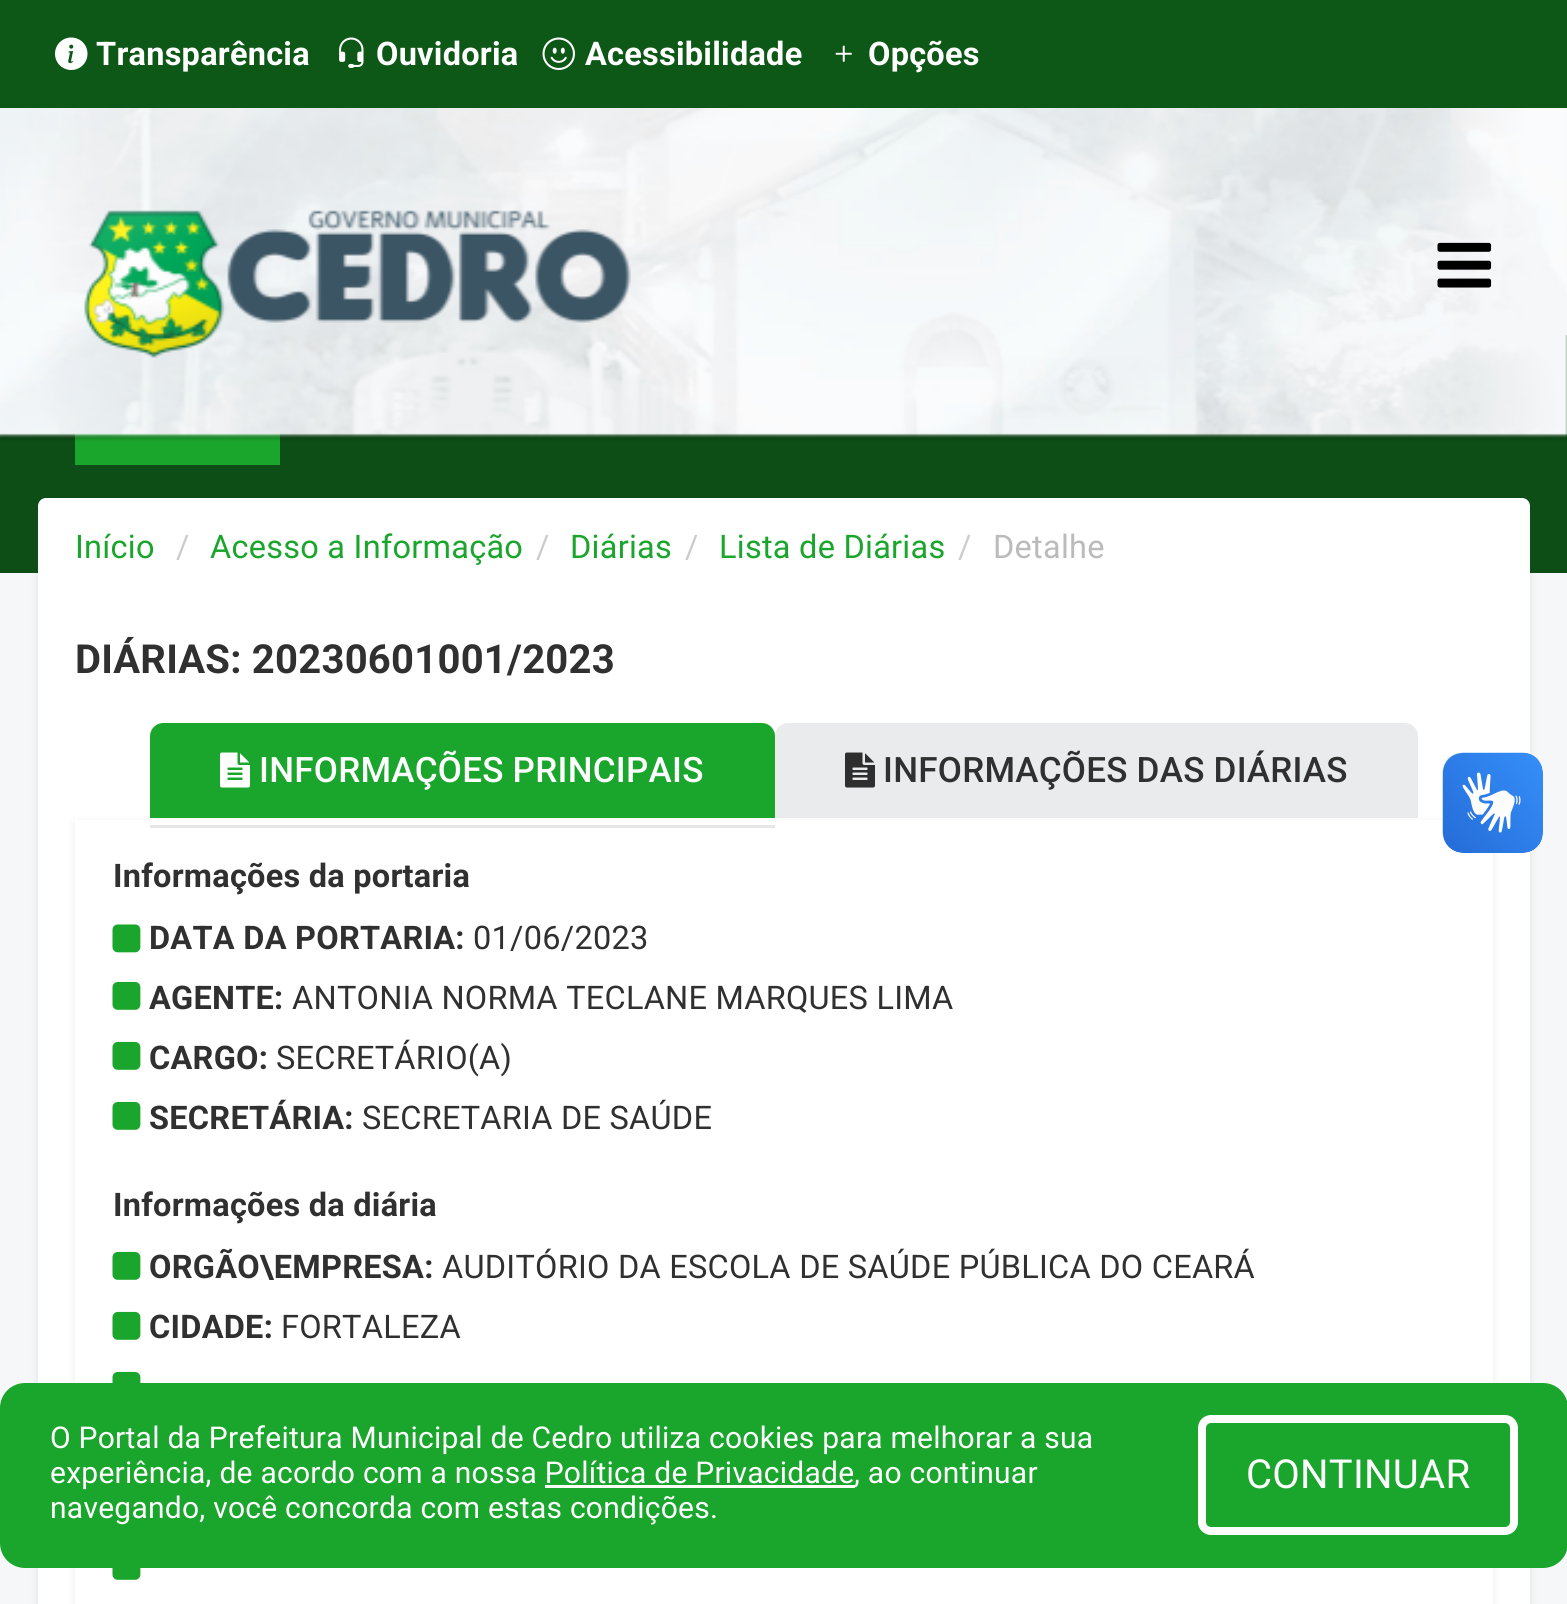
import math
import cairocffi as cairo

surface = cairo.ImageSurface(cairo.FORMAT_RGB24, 1567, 1604)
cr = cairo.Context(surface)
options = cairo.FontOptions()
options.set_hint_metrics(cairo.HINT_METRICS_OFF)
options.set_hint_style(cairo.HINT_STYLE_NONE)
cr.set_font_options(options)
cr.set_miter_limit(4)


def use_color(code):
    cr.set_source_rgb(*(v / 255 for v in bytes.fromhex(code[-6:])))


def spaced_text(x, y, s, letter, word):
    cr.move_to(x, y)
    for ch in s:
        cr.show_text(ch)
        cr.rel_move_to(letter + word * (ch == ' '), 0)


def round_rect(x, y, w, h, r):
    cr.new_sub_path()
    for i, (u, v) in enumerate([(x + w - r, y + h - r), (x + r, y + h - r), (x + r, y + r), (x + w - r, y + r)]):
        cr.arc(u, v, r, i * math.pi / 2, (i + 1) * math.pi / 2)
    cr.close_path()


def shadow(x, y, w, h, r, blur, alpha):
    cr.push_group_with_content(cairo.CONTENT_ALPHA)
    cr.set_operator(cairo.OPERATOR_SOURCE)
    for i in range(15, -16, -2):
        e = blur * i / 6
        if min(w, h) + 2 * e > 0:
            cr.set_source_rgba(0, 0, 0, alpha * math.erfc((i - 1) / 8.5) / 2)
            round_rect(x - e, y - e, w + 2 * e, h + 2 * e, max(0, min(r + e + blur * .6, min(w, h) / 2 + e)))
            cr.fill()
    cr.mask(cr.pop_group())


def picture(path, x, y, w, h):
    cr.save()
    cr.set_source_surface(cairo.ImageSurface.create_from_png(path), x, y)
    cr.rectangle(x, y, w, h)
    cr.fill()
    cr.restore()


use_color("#f6f7f8")
cr.paint()
use_color("#030047")
shadow(38, 500, 1492, 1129, 13, 4, 0.09)
use_color("#0c4e15")
cr.rectangle(0, 335, 1567, 238)
cr.fill()
use_color("#1aa62c")
cr.rectangle(75, 433, 205, 32)
cr.fill()
cr.save()
cr.rectangle(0, 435, 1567, 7)
cr.clip()
use_color("#000000")
shadow(0, 3, 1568, 435, 0, 2.5, 0.3)
cr.restore()
picture("img1.png", 0, 108, 1567, 330)
use_color("#0e5817")
cr.rectangle(0, 0, 1567, 108)
cr.fill()
picture("img2.png", 55, 37, 33, 33)
cr.select_font_face("Roboto", cairo.FONT_SLANT_NORMAL, cairo.FONT_WEIGHT_BOLD)
cr.set_font_size(32.5)
use_color("#ffffff")
spaced_text(96, 65, "Transparência", 0.25, 0)
picture("img3.png", 339, 37, 25, 31)
spaced_text(376, 65, "Ouvidoria", 0.25, 0)
picture("img4.png", 542, 37, 33, 33)
spaced_text(585, 65, "Acessibilidade", 0.25, 0)
picture("img5.png", 835, 45, 17, 17)
spaced_text(868, 65, "Opções", 0.25, 0)
picture("img6.png", 84, 210, 547, 148)
picture("img7.png", 1437, 242, 55, 46)
cr.rectangle(38, 590, 1492, 1014)
cr.fill()
round_rect(38, 498, 1492, 100, 8)
cr.fill()
cr.select_font_face("Roboto")
use_color("#1aa62c")
spaced_text(75, 558, "Início", 0.25, 0)
use_color("#cccccc")
spaced_text(176, 558, "/", 0.25, 0)
use_color("#1aa62c")
spaced_text(210, 558, "Acesso a Informação", 0.25, 0)
use_color("#cccccc")
spaced_text(536, 558, "/", 0.25, 0)
use_color("#1aa62c")
spaced_text(570, 558, "Diárias", 0.25, 0)
use_color("#cccccc")
spaced_text(685, 558, "/", 0.25, 0)
use_color("#1aa62c")
spaced_text(719, 558, "Lista de Diárias", 0.25, 0)
use_color("#cccccc")
spaced_text(958, 558, "/", 0.25, 0)
use_color("#bbbbbb")
spaced_text(993, 558, "Detalhe", 0.25, 0)
cr.select_font_face("Roboto", cairo.FONT_SLANT_NORMAL, cairo.FONT_WEIGHT_BOLD)
cr.set_font_size(40)
use_color("#303030")
spaced_text(75, 673, "DIÁRIAS: 20230601001/2023", 0.25, 0)
cr.save()
cr.set_fill_rule(cairo.FILL_RULE_EVEN_ODD)
cr.new_path()
cr.move_to(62, 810)
cr.line_to(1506, 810)
cr.line_to(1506, 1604)
cr.line_to(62, 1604)
cr.close_path()
cr.move_to(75, 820)
cr.line_to(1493, 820)
cr.line_to(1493, 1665)
cr.line_to(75, 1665)
cr.close_path()
cr.clip()
use_color("#030047")
shadow(75, 823, 1418, 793, 0, 4, 0.09)
cr.restore()
use_color("#e6e6e6")
cr.rectangle(150, 825, 625, 3)
cr.fill()
use_color("#1aa62c")
cr.new_path()
cr.move_to(163, 723)
cr.line_to(762, 723)
cr.curve_to(769, 723, 775, 729, 775, 736)
cr.line_to(775, 818)
cr.line_to(150, 818)
cr.line_to(150, 736)
cr.curve_to(150, 729, 156, 723, 163, 723)
cr.close_path()
cr.fill()
picture("img8.png", 220, 752, 30, 36)
cr.select_font_face("Roboto Medium")
cr.set_font_size(35)
use_color("#ffffff")
spaced_text(259, 782, "INFORMAÇÕES PRINCIPAIS", 0.25, 0)
use_color("#eaebec")
cr.new_path()
cr.move_to(788, 723)
cr.line_to(1405, 723)
cr.curve_to(1412, 723, 1418, 729, 1418, 736)
cr.line_to(1418, 818)
cr.line_to(775, 818)
cr.line_to(775, 736)
cr.curve_to(775, 729, 781, 723, 788, 723)
cr.close_path()
cr.fill()
picture("img9.png", 845, 752, 30, 36)
use_color("#303030")
spaced_text(883, 782, "INFORMAÇÕES DAS DIÁRIAS", 0.25, 0)
cr.select_font_face("Roboto", cairo.FONT_SLANT_NORMAL, cairo.FONT_WEIGHT_BOLD)
cr.set_font_size(32.5)
spaced_text(113, 887, "Informações da portaria", 0.25, 0)
picture("img10.png", 112, 924, 29, 29)
spaced_text(149, 949, "DATA DA PORTARIA:", 0.25, 0)
cr.select_font_face("Roboto")
spaced_text(473, 949, "01/06/2023", 0.25, 0)
picture("img11.png", 112, 981, 29, 29)
cr.select_font_face("Roboto", cairo.FONT_SLANT_NORMAL, cairo.FONT_WEIGHT_BOLD)
spaced_text(149, 1009, "AGENTE:", 0.25, 0)
cr.select_font_face("Roboto")
spaced_text(292, 1009, "ANTONIA NORMA TECLANE MARQUES LIMA", 0.25, 0)
picture("img11.png", 112, 1041, 29, 29)
cr.select_font_face("Roboto", cairo.FONT_SLANT_NORMAL, cairo.FONT_WEIGHT_BOLD)
spaced_text(149, 1069, "CARGO:", 0.25, 0)
cr.select_font_face("Roboto")
spaced_text(276, 1069, "SECRETÁRIO(A)", 0.25, 0)
picture("img11.png", 112, 1101, 29, 29)
cr.select_font_face("Roboto", cairo.FONT_SLANT_NORMAL, cairo.FONT_WEIGHT_BOLD)
spaced_text(149, 1129, "SECRETÁRIA:", 0.25, 0)
cr.select_font_face("Roboto")
spaced_text(362, 1129, "SECRETARIA DE SAÚDE", 0.25, 0)
cr.select_font_face("Roboto", cairo.FONT_SLANT_NORMAL, cairo.FONT_WEIGHT_BOLD)
spaced_text(113, 1216, "Informações da diária", 0.25, 0)
picture("img11.png", 112, 1251, 29, 29)
spaced_text(149, 1278, "ORGÃO\\EMPRESA:", 0.25, 0)
cr.select_font_face("Roboto")
spaced_text(442, 1278, "AUDITÓRIO DA ESCOLA DE SAÚDE PÚBLICA DO CEARÁ", 0.25, 0)
picture("img11.png", 112, 1311, 29, 29)
cr.select_font_face("Roboto", cairo.FONT_SLANT_NORMAL, cairo.FONT_WEIGHT_BOLD)
spaced_text(149, 1338, "CIDADE:", 0.25, 0)
cr.select_font_face("Roboto")
spaced_text(281, 1338, "FORTALEZA", 0.25, 0)
picture("img12.png", 112, 1371, 29, 12)
picture("img13.png", 112, 1568, 29, 12)
picture("img14.png", 1442, 752, 101, 101)
picture("img15.png", 1443, 753, 100, 100)
use_color("#1aa62c")
round_rect(0, 1383, 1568, 185, 25)
cr.fill()
cr.set_font_size(30)
use_color("#ffffff")
spaced_text(50, 1448, "O Portal da Prefeitura Municipal de Cedro utiliza cookies para melhorar a sua", 0.25, 0)
spaced_text(50, 1483, "experiência, de acordo com a nossa Política de Privacidade", 0.25, 0)
cr.rectangle(545, 1485, 310, 3)
cr.fill()
spaced_text(854, 1483, ", ao continuar", 0.25, 0)
spaced_text(50, 1518, "navegando, você concorda com estas condições.", 0.25, 0)
round_rect(1202, 1419, 312, 112, 9)
cr.set_line_width(8)
cr.stroke()
cr.set_font_size(40)
spaced_text(1246, 1488, "CONTINUAR", 0.25, 0)
surface.write_to_png("result.png")
